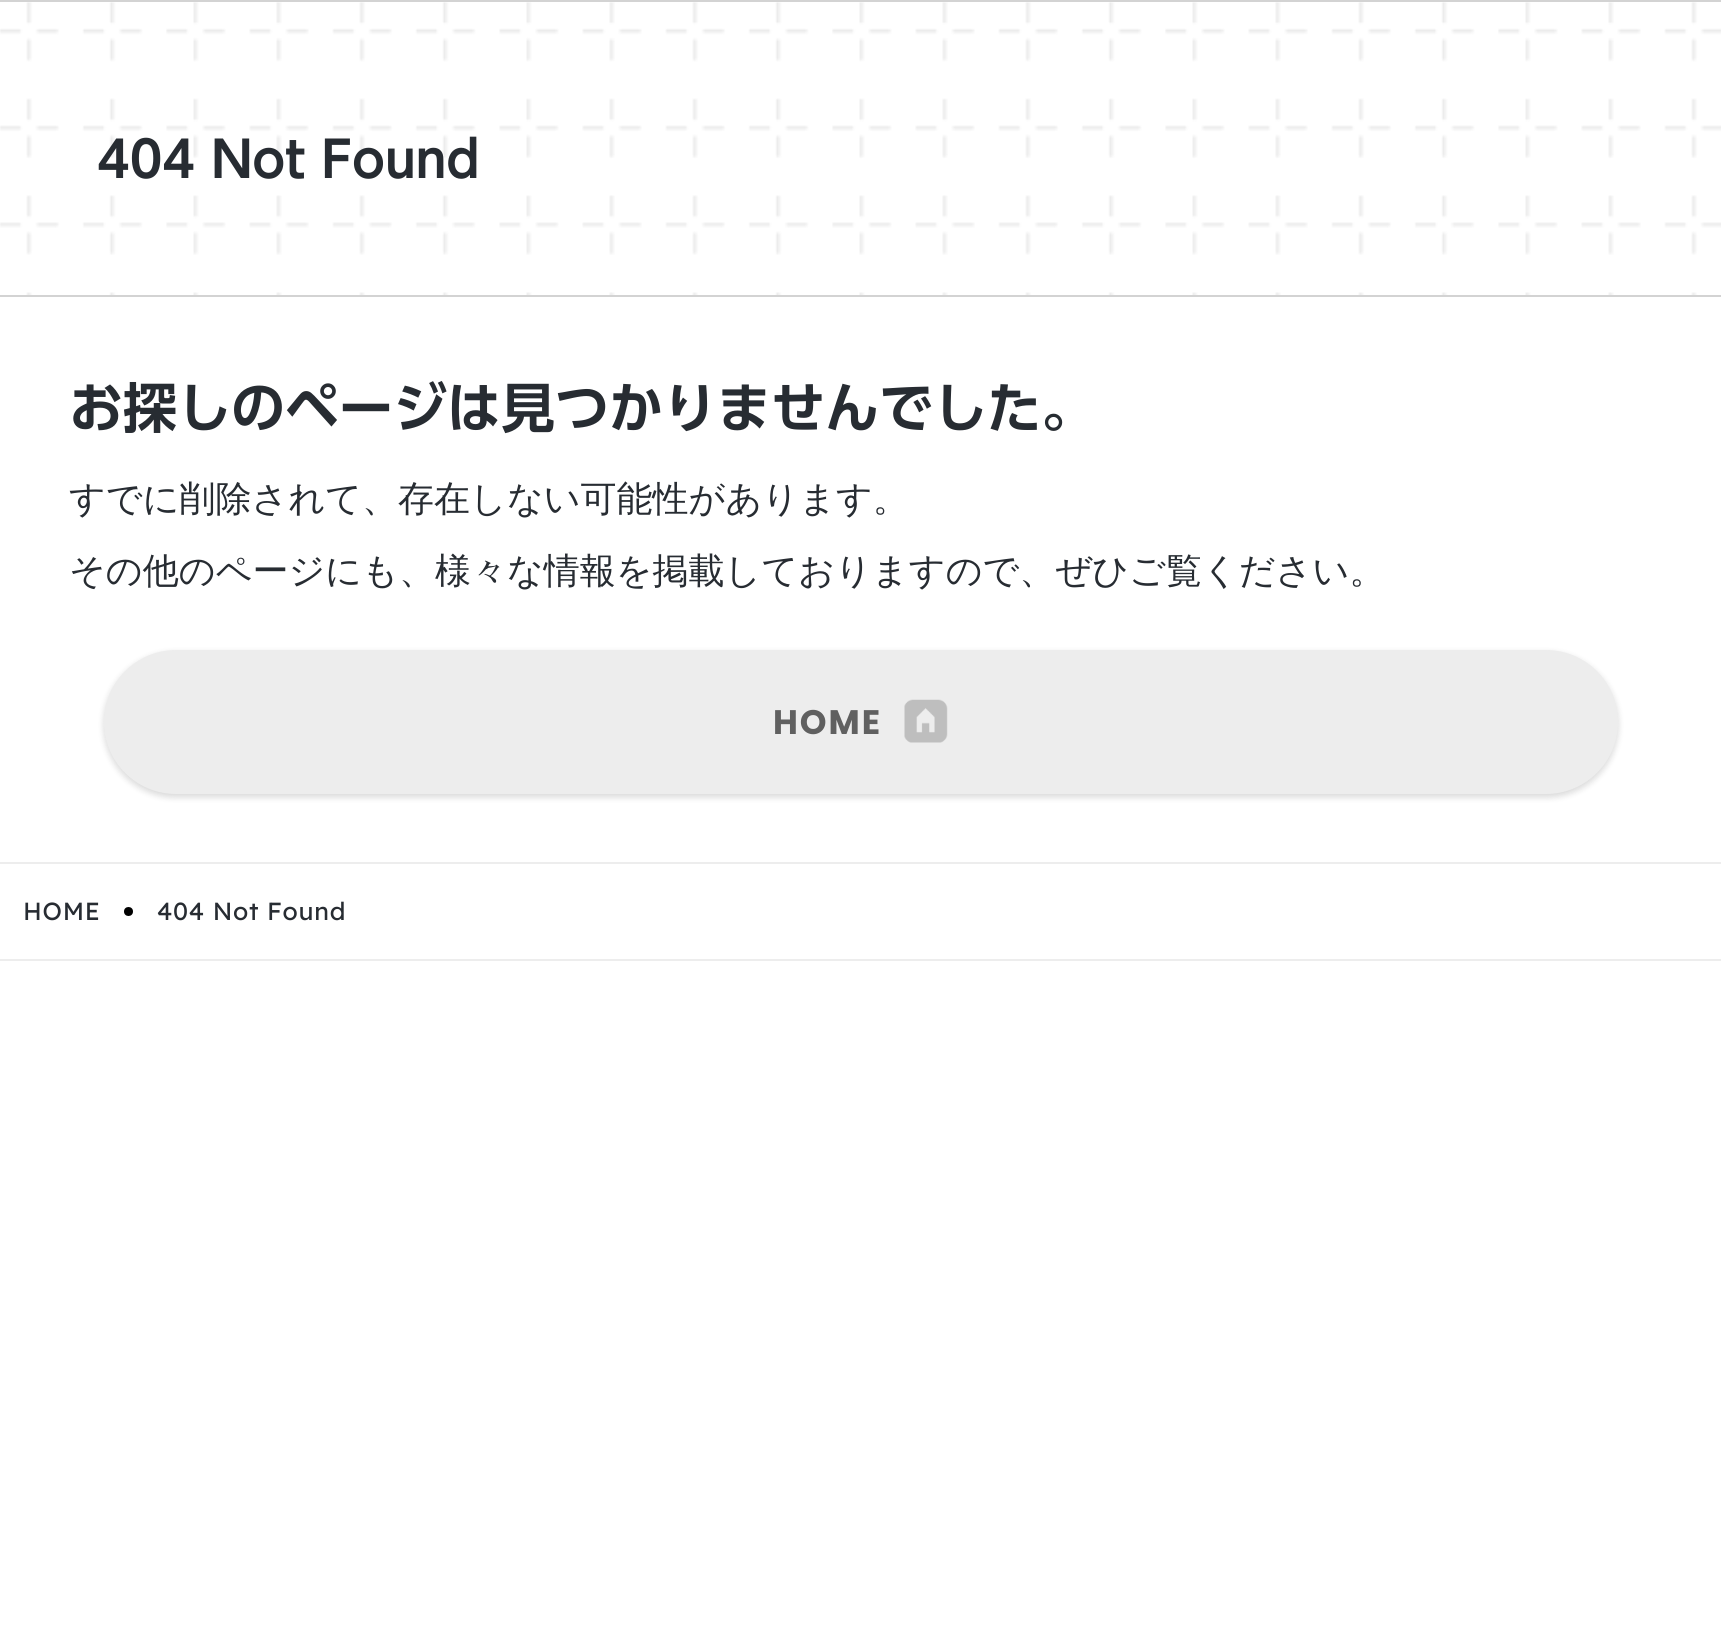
import math
import cairocffi as cairo

surface = cairo.ImageSurface(cairo.FORMAT_RGB24, 1721, 1643)
cr = cairo.Context(surface)
options = cairo.FontOptions()
options.set_hint_metrics(cairo.HINT_METRICS_OFF)
options.set_hint_style(cairo.HINT_STYLE_NONE)
cr.set_font_options(options)
cr.set_miter_limit(4)


def use_color(code):
    cr.set_source_rgb(*(v / 255 for v in bytes.fromhex(code[-6:])))


def spaced_text(x, y, s, letter, word):
    cr.move_to(x, y)
    for ch in s:
        cr.show_text(ch)
        cr.rel_move_to(letter + word * (ch == ' '), 0)


def round_rect(x, y, w, h, r):
    cr.new_sub_path()
    for i, (u, v) in enumerate([(x + w - r, y + h - r), (x + r, y + h - r), (x + r, y + r), (x + w - r, y + r)]):
        cr.arc(u, v, r, i * math.pi / 2, (i + 1) * math.pi / 2)
    cr.close_path()


def shadow(x, y, w, h, r, blur, alpha):
    cr.push_group_with_content(cairo.CONTENT_ALPHA)
    cr.set_operator(cairo.OPERATOR_SOURCE)
    for i in range(15, -16, -2):
        e = blur * i / 6
        if min(w, h) + 2 * e > 0:
            cr.set_source_rgba(0, 0, 0, alpha * math.erfc((i - 1) / 8.5) / 2)
            round_rect(x - e, y - e, w + 2 * e, h + 2 * e, max(0, min(r + e + blur * .6, min(w, h) / 2 + e)))
            cr.fill()
    cr.mask(cr.pop_group())


def picture(path, x, y, w, h):
    cr.save()
    cr.set_source_surface(cairo.ImageSurface.create_from_png(path), x, y)
    cr.rectangle(x, y, w, h)
    cr.fill()
    cr.restore()


use_color("#ffffff")
cr.paint()
picture("img1.png", 0, 2, 1721, 293)
use_color("#d3d3d3")
cr.rectangle(0, 0, 1721, 2)
cr.fill()
cr.rectangle(0, 295, 1721, 2)
cr.fill()
cr.select_font_face("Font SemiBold")
cr.set_font_size(49.5)
use_color("#272c32")
cr.move_to(97, 178)
cr.show_text("404 Not Found")
cr.set_font_size(54)
cr.move_to(69, 428)
cr.show_text("お探しのページは見つかりませんでした。")
cr.select_font_face("WenQuanYi Zen Hei Medium")
cr.set_font_size(36)
cr.move_to(69, 511)
cr.show_text("すでに削除されて、存在しない可能性があります。")
cr.move_to(69, 583)
cr.show_text("その他のページにも、様々な情報を掲載しておりますので、ぜひご覧ください。")
use_color("#000000")
shadow(104, 653, 1514, 144, 72, 3.5, 0.16)
use_color("#ededed")
round_rect(104, 650, 1514, 144, 72)
cr.fill()
cr.select_font_face("Poppins", cairo.FONT_SLANT_NORMAL, cairo.FONT_WEIGHT_BOLD)
cr.set_font_size(34)
use_color("#606060")
spaced_text(773, 734, "HOME", 2, 0)
picture("img2.png", 904, 699, 44, 44)
use_color("#ededed")
cr.rectangle(0, 862, 1721, 2)
cr.fill()
cr.rectangle(0, 959, 1721, 2)
cr.fill()
cr.select_font_face("Lexend")
cr.set_font_size(24.75)
use_color("#272c32")
spaced_text(23, 920, "HOME", 0.75, 0)
use_color("#000000")
cr.new_path()
cr.arc(128.5, 911.5, 4.5, 0, 2 * math.pi)
cr.fill()
use_color("#272c32")
spaced_text(157, 920, "404 Not Found", 0.75, 0)
surface.write_to_png("result.png")
